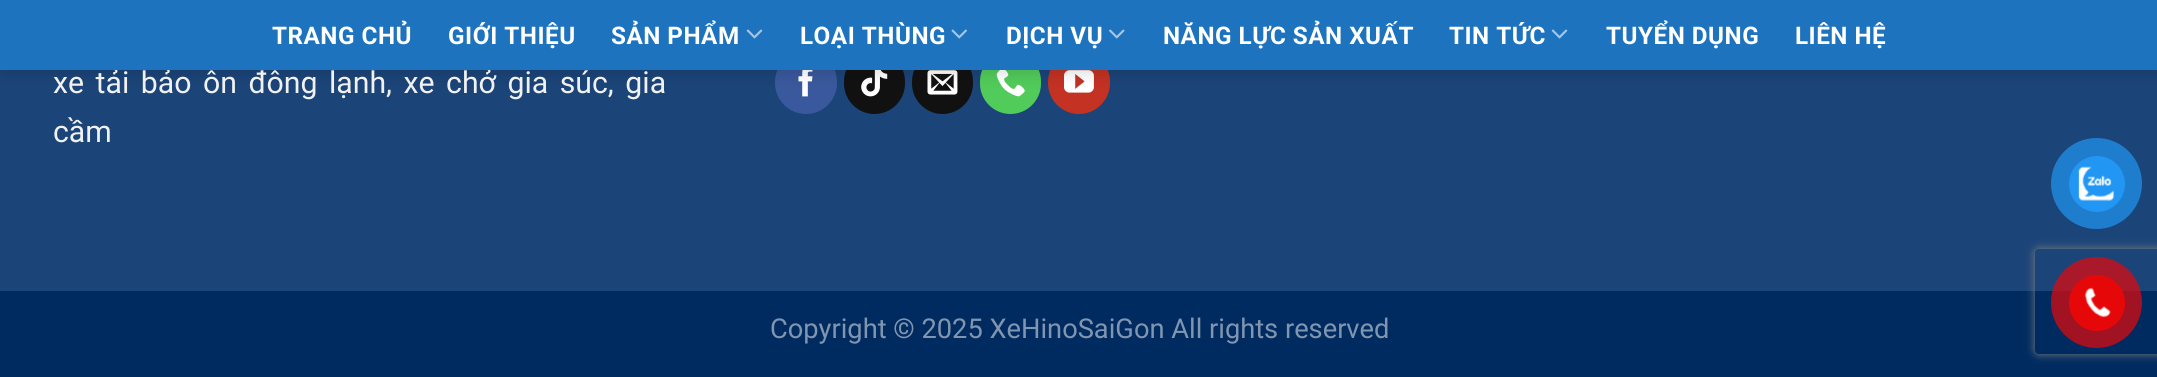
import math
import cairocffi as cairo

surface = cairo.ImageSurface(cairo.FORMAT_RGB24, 2157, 377)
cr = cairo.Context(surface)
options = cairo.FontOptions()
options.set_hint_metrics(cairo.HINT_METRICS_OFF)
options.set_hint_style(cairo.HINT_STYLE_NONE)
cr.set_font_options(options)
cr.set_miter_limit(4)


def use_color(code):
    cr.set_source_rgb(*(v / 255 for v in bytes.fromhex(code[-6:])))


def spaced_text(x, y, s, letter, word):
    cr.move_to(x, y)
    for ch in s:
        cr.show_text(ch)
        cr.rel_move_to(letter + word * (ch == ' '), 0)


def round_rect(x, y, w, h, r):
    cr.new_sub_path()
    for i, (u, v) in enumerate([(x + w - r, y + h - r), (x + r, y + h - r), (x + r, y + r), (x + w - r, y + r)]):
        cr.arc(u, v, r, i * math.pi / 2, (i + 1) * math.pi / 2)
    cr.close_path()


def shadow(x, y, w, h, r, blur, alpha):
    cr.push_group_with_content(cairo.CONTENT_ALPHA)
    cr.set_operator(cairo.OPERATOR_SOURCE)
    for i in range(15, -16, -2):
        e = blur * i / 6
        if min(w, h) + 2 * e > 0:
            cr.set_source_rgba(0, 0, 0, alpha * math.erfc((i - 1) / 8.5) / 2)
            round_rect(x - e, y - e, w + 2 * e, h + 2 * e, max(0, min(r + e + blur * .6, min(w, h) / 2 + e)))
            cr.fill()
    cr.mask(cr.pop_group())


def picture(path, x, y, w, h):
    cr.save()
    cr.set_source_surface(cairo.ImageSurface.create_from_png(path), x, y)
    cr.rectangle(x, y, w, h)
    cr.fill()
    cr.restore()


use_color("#002b60")
cr.paint()
use_color("#1b4478")
cr.rectangle(0, 70, 2157, 221)
cr.fill()
use_color("#3a589d")
round_rect(776, 52, 60, 61, 30)
cr.fill_preserve()
cr.stroke()
picture("img4.png", 798, 70, 15, 27)
use_color("#111111")
round_rect(845, 52, 59, 61, 29.5)
cr.fill_preserve()
cr.stroke()
picture("img5.png", 861, 70, 27, 27)
round_rect(913, 52, 59, 61, 29.5)
cr.fill_preserve()
cr.stroke()
picture("img6.png", 927, 70, 31, 25)
use_color("#51cb5a")
round_rect(981, 52, 59, 61, 29.5)
cr.fill_preserve()
cr.stroke()
picture("img7.png", 996, 70, 29, 27)
use_color("#c33223")
round_rect(1049, 52, 60, 61, 30)
cr.fill_preserve()
cr.stroke()
picture("img8.png", 1064, 70, 30, 23)
use_color("#000000")
shadow(2, 2, 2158, 70, 0, 9, 0.15)
cr.select_font_face("Roboto")
cr.set_font_size(30.25)
use_color("#f1f1f1")
spaced_text(53, 93, "xe tải bảo ôn đông lạnh, xe chở gia súc, gia", 0, 4)
use_color("#1e73be")
cr.rectangle(0, 0, 2157, 70)
cr.fill()
cr.select_font_face("Roboto", cairo.FONT_SLANT_NORMAL, cairo.FONT_WEIGHT_BOLD)
cr.set_font_size(24.25)
use_color("#ffffff")
spaced_text(272, 44, "TRANG CHỦ", 0.5, 0)
spaced_text(448, 44, "GIỚI THIỆU", 0.5, 0)
spaced_text(611, 44, "SẢN PHẨM", 0.5, 0)
picture("img1.png", 746, 29, 17, 10)
spaced_text(800, 44, "LOẠI THÙNG", 0.5, 0)
picture("img2.png", 951, 29, 16, 10)
spaced_text(1006, 44, "DỊCH VỤ", 0.5, 0)
picture("img3.png", 1109, 29, 16, 10)
spaced_text(1163, 44, "NĂNG LỰC SẢN XUẤT", 0.5, 0)
spaced_text(1449, 44, "TIN TỨC", 0.5, 0)
picture("img1.png", 1551, 29, 17, 10)
spaced_text(1606, 44, "TUYỂN DỤNG", 0.5, 0)
spaced_text(1795, 44, "LIÊN HỆ", 0.5, 0)
cr.select_font_face("Roboto")
cr.set_font_size(30.25)
use_color("#f1f1f1")
cr.move_to(53, 142)
cr.show_text("cầm")
cr.set_font_size(27.25)
use_color("#8095b0")
cr.move_to(770, 338)
cr.show_text("Copyright © 2025 XeHinoSaiGon All rights reserved")
use_color("#1f7dce")
cr.new_path()
cr.arc(2096.5, 183.5, 45.5, 0, 2 * math.pi)
cr.fill()
use_color("#2196f3")
cr.arc(2097, 184, 28, 0, 2 * math.pi)
cr.fill()
picture("img9.png", 2078, 166, 37, 35)
cr.save()
cr.set_fill_rule(cairo.FILL_RULE_EVEN_ODD)
cr.new_path()
cr.move_to(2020, 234)
cr.line_to(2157, 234)
cr.line_to(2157, 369)
cr.line_to(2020, 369)
cr.close_path()
cr.move_to(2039, 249)
cr.line_to(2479, 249)
cr.curve_to(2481, 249, 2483, 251, 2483, 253)
cr.line_to(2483, 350)
cr.curve_to(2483, 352, 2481, 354, 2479, 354)
cr.line_to(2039, 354)
cr.curve_to(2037, 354, 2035, 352, 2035, 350)
cr.line_to(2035, 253)
cr.curve_to(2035, 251, 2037, 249, 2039, 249)
cr.close_path()
cr.clip()
use_color("#808080")
shadow(2035, 249, 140, 105, 4, 4.5, 1)
cr.restore()
cr.set_source_rgba(0.902, 0.031, 0.031, 0.7)
cr.arc(2096.5, 302.5, 45.5, 0, 2 * math.pi)
cr.fill()
use_color("#e60808")
cr.arc(2097, 303, 28, 0, 2 * math.pi)
cr.fill()
picture("img10.png", 2084, 287, 27, 31)
surface.write_to_png("result.png")
